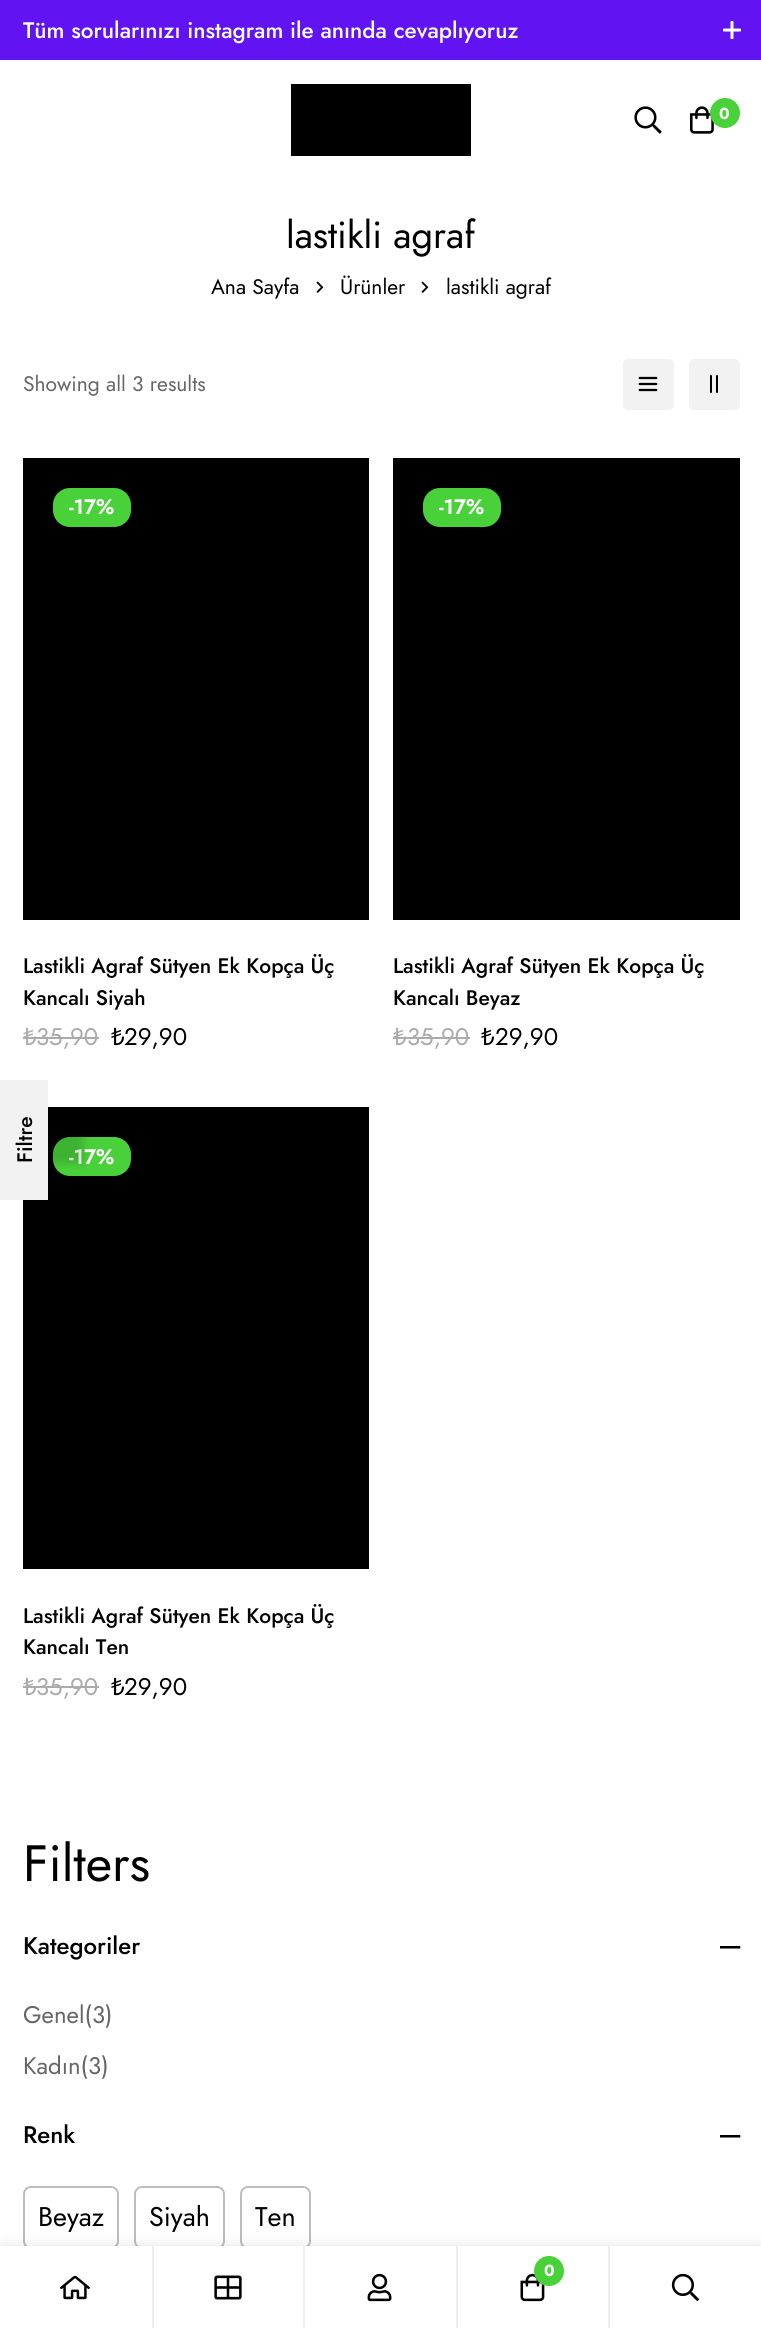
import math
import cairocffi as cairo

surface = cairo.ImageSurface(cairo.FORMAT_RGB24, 761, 2328)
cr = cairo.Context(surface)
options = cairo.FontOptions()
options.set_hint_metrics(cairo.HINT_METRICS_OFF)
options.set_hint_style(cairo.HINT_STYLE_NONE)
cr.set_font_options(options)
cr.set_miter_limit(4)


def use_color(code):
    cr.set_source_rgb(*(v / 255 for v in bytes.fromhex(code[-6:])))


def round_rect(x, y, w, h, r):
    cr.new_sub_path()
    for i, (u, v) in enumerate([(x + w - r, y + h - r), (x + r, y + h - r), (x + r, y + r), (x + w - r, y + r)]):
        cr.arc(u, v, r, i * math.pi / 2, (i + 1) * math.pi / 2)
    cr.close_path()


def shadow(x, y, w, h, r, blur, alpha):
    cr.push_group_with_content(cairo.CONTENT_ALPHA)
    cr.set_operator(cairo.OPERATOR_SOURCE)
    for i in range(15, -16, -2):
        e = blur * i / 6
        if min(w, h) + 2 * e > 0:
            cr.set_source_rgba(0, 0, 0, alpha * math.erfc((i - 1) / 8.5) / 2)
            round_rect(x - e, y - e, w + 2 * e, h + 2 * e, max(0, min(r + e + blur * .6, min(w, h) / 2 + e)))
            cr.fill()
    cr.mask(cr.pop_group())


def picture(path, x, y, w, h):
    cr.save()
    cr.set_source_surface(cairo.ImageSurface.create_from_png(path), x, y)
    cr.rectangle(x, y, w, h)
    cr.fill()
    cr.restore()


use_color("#ffffff")
cr.paint()
use_color("#6113f2")
cr.rectangle(0, 0, 761, 60)
cr.fill()
cr.save()
cr.rectangle(23, 11, 717, 39)
cr.clip()
cr.select_font_face("Jost Medium")
cr.set_font_size(22.5)
use_color("#ffffff")
cr.move_to(23, 38)
cr.show_text("Tüm sorularınızı instagram ile anında cevaplıyoruz")
cr.restore()
picture("img1.png", 723, 21, 18, 18)
use_color("#000000")
cr.rectangle(291, 84, 180, 72)
cr.fill()
picture("img2.png", 634, 106, 28, 28)
picture("img3.png", 690, 106, 24, 28)
use_color("#49d13a")
cr.arc(725, 113, 15, 0, 2 * math.pi)
cr.fill()
cr.select_font_face("Jost", cairo.FONT_SLANT_NORMAL, cairo.FONT_WEIGHT_BOLD)
cr.set_font_size(16)
use_color("#ffffff")
cr.move_to(719, 119)
cr.show_text("0")
cr.select_font_face("Jost")
cr.set_font_size(37.75)
use_color("#000000")
cr.move_to(286, 248)
cr.show_text("lastikli agraf")
cr.set_font_size(21)
cr.move_to(211, 294)
cr.show_text("Ana Sayfa")
picture("img4.png", 316, 281, 8, 12)
cr.move_to(340, 294)
cr.show_text("Ürünler")
picture("img4.png", 421, 281, 8, 12)
cr.move_to(446, 294)
cr.show_text("lastikli agraf")
use_color("#666666")
cr.move_to(23, 391)
cr.show_text("Showing all 3 results")
use_color("#f2f2f2")
round_rect(623, 359, 51, 51, 5)
cr.fill()
picture("img5.png", 638, 376, 20, 16)
round_rect(689, 359, 51, 51, 5)
cr.fill()
use_color("#000000")
round_rect(710, 375, 2, 18, 1)
cr.fill()
round_rect(716, 375, 2, 18, 1)
cr.fill()
cr.rectangle(23, 458, 346, 462)
cr.fill()
use_color("#49d13a")
round_rect(53, 488, 78, 39, 17)
cr.fill()
cr.select_font_face("Jost SemiBold")
use_color("#ffffff")
cr.move_to(69, 514)
cr.show_text("-17%")
cr.select_font_face("Jost Medium")
use_color("#000000")
cr.move_to(23, 973)
cr.show_text("Lastikli Agraf Sütyen Ek Kopça Üç")
cr.move_to(23, 1005)
cr.show_text("Kancalı Siyah")
cr.select_font_face("Noto Sans")
cr.set_font_size(24)
use_color("#ababab")
cr.move_to(23, 1045)
cr.show_text("₺")
cr.select_font_face("Jost")
cr.move_to(36, 1045)
cr.show_text("35,90")
cr.rectangle(23, 1037, 76, 2)
cr.fill()
cr.select_font_face("Noto Sans")
use_color("#000000")
cr.move_to(111, 1045)
cr.show_text("₺")
cr.select_font_face("Jost")
cr.move_to(124, 1045)
cr.show_text("29,90")
cr.rectangle(393, 458, 347, 462)
cr.fill()
use_color("#49d13a")
round_rect(423, 488, 78, 39, 17)
cr.fill()
cr.select_font_face("Jost SemiBold")
cr.set_font_size(21)
use_color("#ffffff")
cr.move_to(439, 514)
cr.show_text("-17%")
cr.select_font_face("Jost Medium")
use_color("#000000")
cr.move_to(393, 973)
cr.show_text("Lastikli Agraf Sütyen Ek Kopça Üç")
cr.move_to(393, 1005)
cr.show_text("Kancalı Beyaz")
cr.select_font_face("Noto Sans")
cr.set_font_size(24)
use_color("#ababab")
cr.move_to(393, 1045)
cr.show_text("₺")
cr.select_font_face("Jost")
cr.move_to(407, 1045)
cr.show_text("35,90")
cr.rectangle(393, 1037, 77, 2)
cr.fill()
cr.select_font_face("Noto Sans")
use_color("#000000")
cr.move_to(481, 1045)
cr.show_text("₺")
cr.select_font_face("Jost")
cr.move_to(495, 1045)
cr.show_text("29,90")
cr.rectangle(23, 1107, 346, 462)
cr.fill()
use_color("#49d13a")
round_rect(53, 1137, 78, 39, 17)
cr.fill()
cr.select_font_face("Jost SemiBold")
cr.set_font_size(21)
use_color("#ffffff")
cr.move_to(69, 1164)
cr.show_text("-17%")
cr.select_font_face("Jost Medium")
use_color("#000000")
cr.move_to(23, 1623)
cr.show_text("Lastikli Agraf Sütyen Ek Kopça Üç")
cr.move_to(23, 1654)
cr.show_text("Kancalı Ten")
cr.select_font_face("Noto Sans")
cr.set_font_size(24)
use_color("#ababab")
cr.move_to(23, 1695)
cr.show_text("₺")
cr.select_font_face("Jost")
cr.move_to(36, 1695)
cr.show_text("35,90")
cr.rectangle(23, 1686, 76, 2)
cr.fill()
cr.select_font_face("Noto Sans")
use_color("#000000")
cr.move_to(111, 1695)
cr.show_text("₺")
cr.select_font_face("Jost")
cr.move_to(124, 1695)
cr.show_text("29,90")
use_color("#000000")
shadow(-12, 1116, 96, 48, 0, 4, 0.15)
use_color("#f2f2f2")
cr.rectangle(0, 1080, 48, 120)
cr.fill()
cr.select_font_face("Jost Medium")
cr.set_font_size(21)
use_color("#000000")
cr.save()
cr.translate(32, 1163)
cr.rotate(-90 * math.pi / 180)
cr.move_to(0, 0)
cr.show_text("Filtre")
cr.restore()
cr.select_font_face("Jost")
cr.set_font_size(51)
cr.move_to(23, 1881)
cr.show_text("Filters")
cr.select_font_face("Jost Medium")
cr.set_font_size(24)
cr.move_to(23, 1954)
cr.show_text("Kategoriler")
cr.new_path()
cr.move_to(740, 1946)
cr.curve_to(740.5, 1946, 740.5, 1948.5, 740, 1948.5)
cr.line_to(720, 1948.5)
cr.line_to(720, 1946.5)
cr.line_to(720, 1946)
cr.close_path()
cr.fill()
cr.select_font_face("Jost")
use_color("#666666")
cr.move_to(23, 2023)
cr.show_text("Genel(3)")
cr.move_to(23, 2074)
cr.show_text("Kadın(3)")
cr.select_font_face("Jost Medium")
use_color("#000000")
cr.move_to(23, 2143)
cr.show_text("Renk")
cr.new_path()
cr.move_to(740, 2135)
cr.curve_to(740.5, 2135, 740.5, 2137.5, 740, 2137.5)
cr.line_to(720, 2137.5)
cr.line_to(720, 2135.5)
cr.line_to(720, 2135)
cr.close_path()
cr.fill()
round_rect(24, 2187, 94, 61, 7)
use_color("#bdbdbd")
cr.stroke()
cr.select_font_face("Jost")
cr.set_font_size(27)
use_color("#000000")
cr.move_to(38, 2226)
cr.show_text("Beyaz")
round_rect(135, 2187, 89, 61, 7)
use_color("#bdbdbd")
cr.stroke()
use_color("#000000")
cr.move_to(149, 2226)
cr.show_text("Siyah")
round_rect(241, 2187, 69, 61, 7)
use_color("#bdbdbd")
cr.stroke()
use_color("#000000")
cr.move_to(255, 2226)
cr.show_text("Ten")
use_color("#000000")
shadow(0, 2246, 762, 82, 0, 7.5, 0.11)
use_color("#ffffff")
cr.rectangle(0, 2246, 761, 82)
cr.fill()
use_color("#eeeeee")
cr.rectangle(152, 2246, 2, 82)
cr.fill()
picture("img6.png", 60, 2275, 30, 25)
cr.rectangle(303, 2246, 2, 82)
cr.fill()
picture("img7.png", 214, 2275, 28, 25)
cr.rectangle(456, 2246, 2, 82)
cr.fill()
picture("img8.png", 367, 2273, 25, 29)
cr.rectangle(608, 2246, 2, 82)
cr.fill()
picture("img9.png", 520, 2273, 25, 29)
use_color("#49d13a")
cr.arc(549, 2271, 15, 0, 2 * math.pi)
cr.fill()
cr.select_font_face("Jost", cairo.FONT_SLANT_NORMAL, cairo.FONT_WEIGHT_BOLD)
cr.set_font_size(16)
use_color("#ffffff")
cr.move_to(544, 2276)
cr.show_text("0")
picture("img10.png", 671, 2273, 29, 29)
surface.write_to_png("result.png")
